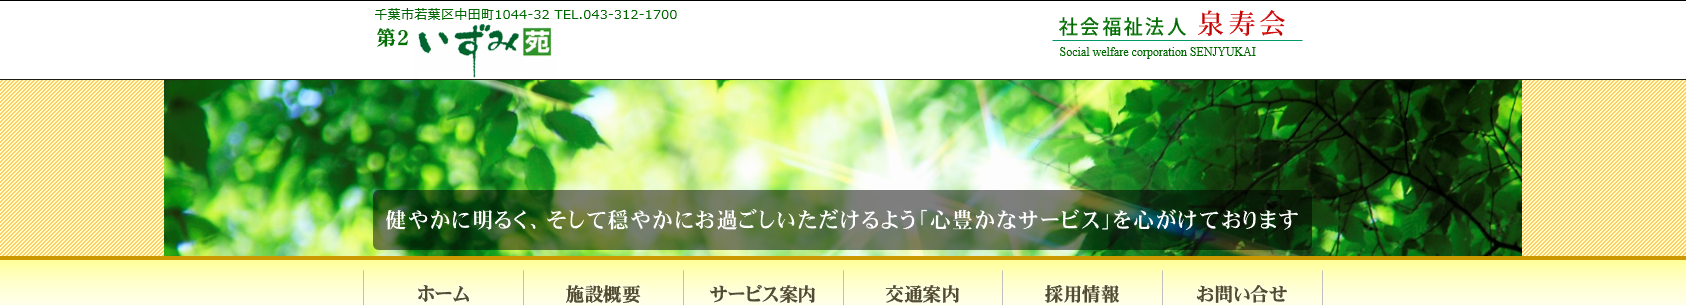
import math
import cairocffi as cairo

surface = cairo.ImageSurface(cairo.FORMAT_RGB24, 1686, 305)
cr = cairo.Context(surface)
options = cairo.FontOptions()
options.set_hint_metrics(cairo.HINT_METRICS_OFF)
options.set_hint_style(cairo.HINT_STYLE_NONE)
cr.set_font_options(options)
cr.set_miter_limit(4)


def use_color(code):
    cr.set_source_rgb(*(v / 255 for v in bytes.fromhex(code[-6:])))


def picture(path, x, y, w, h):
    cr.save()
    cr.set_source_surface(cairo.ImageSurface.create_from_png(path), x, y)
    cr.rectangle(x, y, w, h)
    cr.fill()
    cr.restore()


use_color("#000000")
cr.paint()
picture("img1.png", 0, 1, 1686, 255)
picture("img2.png", 164, 8, 1358, 248)
picture("img3.png", 0, 260, 1686, 45)
use_color("#cc9900")
cr.rectangle(0, 256, 1686, 4)
cr.fill()
picture("img4.png", 363, 270, 960, 35)
surface.write_to_png("result.png")
